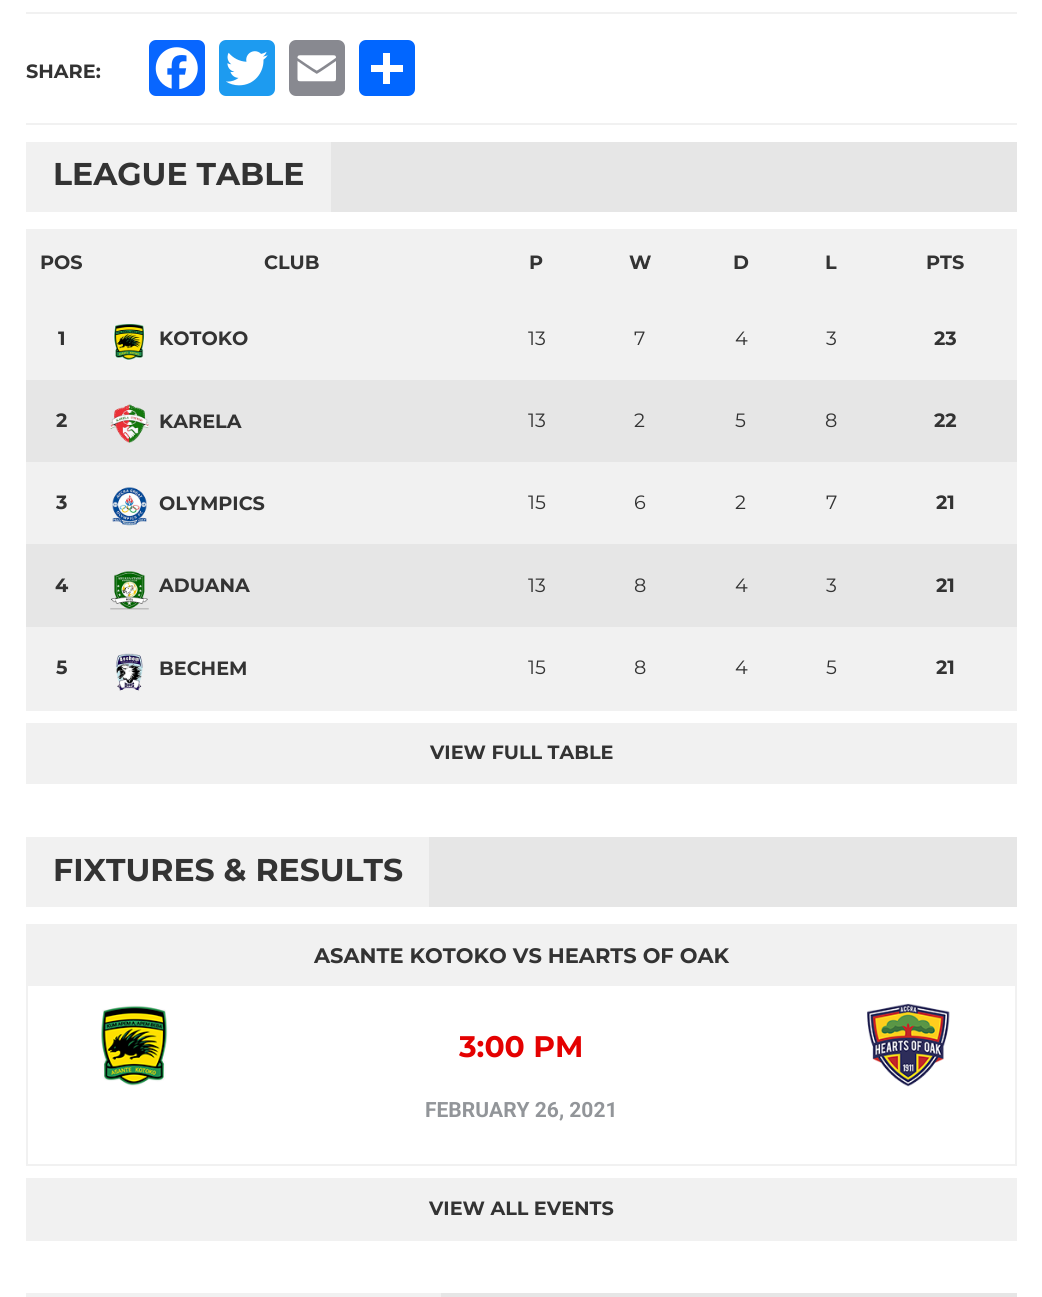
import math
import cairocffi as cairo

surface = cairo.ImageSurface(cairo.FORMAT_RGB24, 1042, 1297)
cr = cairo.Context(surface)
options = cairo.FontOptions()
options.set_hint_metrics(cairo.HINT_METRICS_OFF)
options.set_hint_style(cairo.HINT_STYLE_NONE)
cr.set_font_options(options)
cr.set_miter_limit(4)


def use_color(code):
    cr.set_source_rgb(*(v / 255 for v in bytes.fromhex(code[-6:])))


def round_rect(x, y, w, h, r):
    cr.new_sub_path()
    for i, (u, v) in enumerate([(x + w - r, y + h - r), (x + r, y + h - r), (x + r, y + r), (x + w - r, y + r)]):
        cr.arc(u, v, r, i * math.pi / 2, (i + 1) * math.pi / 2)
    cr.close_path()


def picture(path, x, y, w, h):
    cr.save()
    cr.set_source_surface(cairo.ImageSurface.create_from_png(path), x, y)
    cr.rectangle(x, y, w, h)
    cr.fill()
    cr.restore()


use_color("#ffffff")
cr.paint()
use_color("#f1f1f1")
cr.rectangle(26, 12, 991, 2)
cr.fill()
cr.rectangle(26, 123, 991, 2)
cr.fill()
cr.select_font_face("Montserrat", cairo.FONT_SLANT_NORMAL, cairo.FONT_WEIGHT_BOLD)
cr.set_font_size(19.25)
use_color("#333333")
cr.move_to(26, 78)
cr.show_text("SHARE:")
use_color("#0866ff")
round_rect(149, 40, 56, 56, 7)
cr.fill()
picture("img1.png", 155, 47, 43, 43)
use_color("#1d9bf0")
round_rect(219, 40, 56, 56, 7)
cr.fill()
picture("img2.png", 226, 51, 42, 35)
use_color("#888990")
round_rect(289, 40, 56, 56, 7)
cr.fill()
picture("img3.png", 297, 55, 39, 27)
use_color("#0166ff")
round_rect(359, 40, 56, 56, 7)
cr.fill()
use_color("#ffffff")
cr.rectangle(383, 53, 7, 31)
cr.fill()
cr.rectangle(371, 65, 32, 7)
cr.fill()
use_color("#e6e6e6")
cr.rectangle(331, 142, 686, 70)
cr.fill()
use_color("#f1f1f1")
cr.rectangle(26, 142, 305, 70)
cr.fill()
cr.set_font_size(31.5)
use_color("#333333")
cr.move_to(53, 185)
cr.show_text("LEAGUE TABLE")
use_color("#f1f1f1")
cr.rectangle(26, 229, 991, 69)
cr.fill()
cr.set_font_size(19.25)
use_color("#333333")
cr.move_to(40, 269)
cr.show_text("POS")
cr.move_to(264, 269)
cr.show_text("CLUB")
use_color("#f1f1f1")
cr.new_path()
cr.move_to(327.5, 260.5)
cr.line_to(317.5, 260.5)
cr.line_to(322.5, 267)
cr.close_path()
cr.move_to(325.5, 267)
cr.line_to(335, 267)
cr.line_to(330, 260.5)
cr.close_path()
cr.fill()
use_color("#333333")
cr.move_to(529, 269)
cr.show_text("P")
cr.move_to(629, 269)
cr.show_text("W")
use_color("#f1f1f1")
cr.new_path()
cr.move_to(658, 260.5)
cr.line_to(648.5, 260.5)
cr.line_to(653.5, 267)
cr.close_path()
cr.move_to(656, 267)
cr.line_to(666, 267)
cr.line_to(661, 260.5)
cr.close_path()
cr.fill()
use_color("#333333")
cr.move_to(733, 269)
cr.show_text("D")
cr.move_to(825, 269)
cr.show_text("L")
cr.move_to(926, 269)
cr.show_text("PTS")
use_color("#f1f1f1")
cr.rectangle(26, 298, 991, 82)
cr.fill()
use_color("#333333")
cr.move_to(58, 345)
cr.show_text("1")
picture("img4.png", 113, 324, 32, 37)
cr.move_to(159, 345)
cr.show_text("KOTOKO")
cr.select_font_face("Montserrat")
cr.move_to(528, 345)
cr.show_text("13")
cr.move_to(634, 345)
cr.show_text("7")
cr.move_to(735, 345)
cr.show_text("4")
cr.move_to(826, 345)
cr.show_text("3")
cr.select_font_face("Montserrat", cairo.FONT_SLANT_NORMAL, cairo.FONT_WEIGHT_BOLD)
cr.move_to(934, 345)
cr.show_text("23")
use_color("#e6e6e6")
cr.rectangle(26, 380, 991, 82)
cr.fill()
use_color("#333333")
cr.move_to(56, 427)
cr.show_text("2")
picture("img5.png", 110, 404, 39, 39)
cr.move_to(159, 428)
cr.show_text("KARELA")
cr.select_font_face("Montserrat")
cr.move_to(528, 427)
cr.show_text("13")
cr.move_to(634, 427)
cr.show_text("2")
cr.move_to(735, 427)
cr.show_text("5")
cr.move_to(825, 427)
cr.show_text("8")
cr.select_font_face("Montserrat", cairo.FONT_SLANT_NORMAL, cairo.FONT_WEIGHT_BOLD)
cr.move_to(934, 427)
cr.show_text("22")
use_color("#f1f1f1")
cr.rectangle(26, 462, 991, 82)
cr.fill()
use_color("#333333")
cr.move_to(56, 509)
cr.show_text("3")
picture("img6.png", 112, 487, 35, 39)
cr.move_to(159, 510)
cr.show_text("OLYMPICS")
cr.select_font_face("Montserrat")
cr.move_to(528, 509)
cr.show_text("15")
cr.move_to(634, 509)
cr.show_text("6")
cr.move_to(735, 509)
cr.show_text("2")
cr.move_to(826, 509)
cr.show_text("7")
cr.select_font_face("Montserrat", cairo.FONT_SLANT_NORMAL, cairo.FONT_WEIGHT_BOLD)
cr.move_to(936, 509)
cr.show_text("21")
use_color("#e6e6e6")
cr.rectangle(26, 544, 991, 83)
cr.fill()
use_color("#333333")
cr.move_to(55, 592)
cr.show_text("4")
picture("img7.png", 110, 571, 39, 39)
cr.move_to(159, 592)
cr.show_text("ADUANA")
cr.select_font_face("Montserrat")
cr.move_to(528, 592)
cr.show_text("13")
cr.move_to(634, 592)
cr.show_text("8")
cr.move_to(735, 592)
cr.show_text("4")
cr.move_to(826, 592)
cr.show_text("3")
cr.select_font_face("Montserrat", cairo.FONT_SLANT_NORMAL, cairo.FONT_WEIGHT_BOLD)
cr.move_to(936, 592)
cr.show_text("21")
use_color("#f1f1f1")
cr.rectangle(26, 627, 991, 84)
cr.fill()
use_color("#333333")
cr.move_to(56, 674)
cr.show_text("5")
picture("img8.png", 115, 653, 28, 38)
cr.move_to(159, 675)
cr.show_text("BECHEM")
cr.select_font_face("Montserrat")
cr.move_to(528, 674)
cr.show_text("15")
cr.move_to(634, 674)
cr.show_text("8")
cr.move_to(735, 674)
cr.show_text("4")
cr.move_to(826, 674)
cr.show_text("5")
cr.select_font_face("Montserrat", cairo.FONT_SLANT_NORMAL, cairo.FONT_WEIGHT_BOLD)
cr.move_to(936, 674)
cr.show_text("21")
use_color("#f1f1f1")
cr.rectangle(26, 723, 991, 61)
cr.fill()
use_color("#333333")
cr.move_to(430, 759)
cr.show_text("VIEW FULL TABLE")
use_color("#e6e6e6")
cr.rectangle(429, 837, 588, 70)
cr.fill()
use_color("#f1f1f1")
cr.rectangle(26, 837, 403, 70)
cr.fill()
cr.set_font_size(31.5)
use_color("#333333")
cr.move_to(53, 881)
cr.show_text("FIXTURES & RESULTS")
cr.rectangle(27, 925, 989, 240)
use_color("#f1f1f1")
cr.stroke()
cr.rectangle(28, 926, 987, 60)
cr.fill()
cr.set_font_size(21)
use_color("#333333")
cr.move_to(314, 963)
cr.show_text("ASANTE KOTOKO VS HEARTS OF OAK")
picture("img9.png", 101, 1005, 67, 81)
cr.set_font_size(29.75)
use_color("#e40101")
cr.move_to(459, 1057)
cr.show_text("3:00 PM")
picture("img10.png", 867, 1003, 83, 84)
cr.select_font_face("Roboto", cairo.FONT_SLANT_NORMAL, cairo.FONT_WEIGHT_BOLD)
cr.set_font_size(21)
use_color("#929599")
cr.move_to(425, 1117)
cr.show_text("FEBRUARY 26, 2021")
use_color("#f1f1f1")
cr.rectangle(26, 1178, 991, 63)
cr.fill()
cr.select_font_face("Montserrat", cairo.FONT_SLANT_NORMAL, cairo.FONT_WEIGHT_BOLD)
cr.set_font_size(19.25)
use_color("#333333")
cr.move_to(429, 1215)
cr.show_text("VIEW ALL EVENTS")
use_color("#e6e6e6")
cr.rectangle(441, 1293, 576, 4)
cr.fill()
use_color("#f1f1f1")
cr.rectangle(26, 1293, 415, 4)
cr.fill()
surface.write_to_png("result.png")
